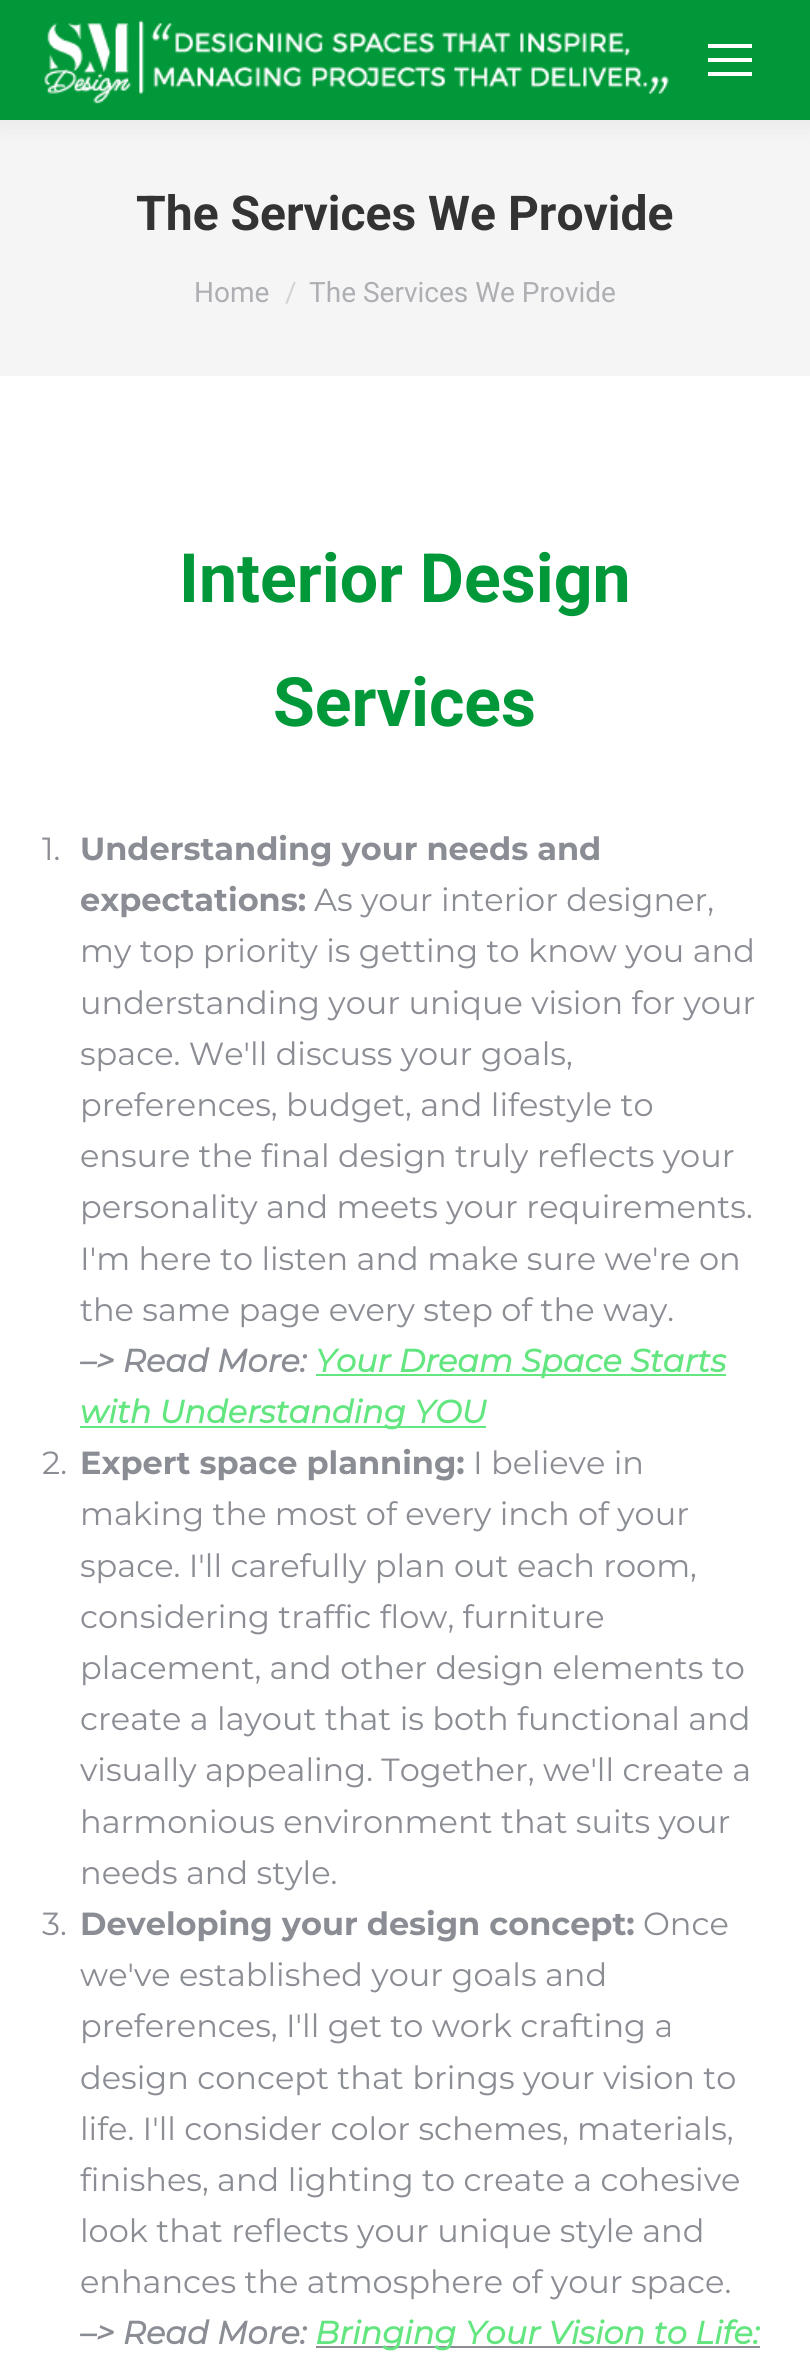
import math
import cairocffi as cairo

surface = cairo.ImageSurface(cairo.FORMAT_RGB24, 810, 2376)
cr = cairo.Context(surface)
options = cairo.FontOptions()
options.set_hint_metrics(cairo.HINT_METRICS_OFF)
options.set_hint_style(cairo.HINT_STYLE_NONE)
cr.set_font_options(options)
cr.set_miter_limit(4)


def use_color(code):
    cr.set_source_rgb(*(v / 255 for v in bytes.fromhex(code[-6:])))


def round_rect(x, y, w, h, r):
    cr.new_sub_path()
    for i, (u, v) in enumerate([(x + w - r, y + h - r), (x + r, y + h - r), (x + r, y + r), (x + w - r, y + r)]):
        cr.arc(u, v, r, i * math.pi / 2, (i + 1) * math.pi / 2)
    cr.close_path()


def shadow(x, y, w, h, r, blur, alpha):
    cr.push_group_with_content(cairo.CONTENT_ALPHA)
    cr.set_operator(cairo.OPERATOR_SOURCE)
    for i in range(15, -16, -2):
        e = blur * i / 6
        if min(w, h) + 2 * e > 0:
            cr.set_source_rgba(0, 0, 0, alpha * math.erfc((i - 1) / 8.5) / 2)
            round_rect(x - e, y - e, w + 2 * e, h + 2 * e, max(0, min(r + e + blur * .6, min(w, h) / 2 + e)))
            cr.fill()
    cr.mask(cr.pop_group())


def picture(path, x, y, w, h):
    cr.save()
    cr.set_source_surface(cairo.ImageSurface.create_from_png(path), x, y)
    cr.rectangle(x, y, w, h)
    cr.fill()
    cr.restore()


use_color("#ffffff")
cr.paint()
use_color("#f5f5f5")
cr.rectangle(0, 120, 810, 256)
cr.fill()
use_color("#000000")
shadow(-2, -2, 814, 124, 0, 15, 0.07)
use_color("#009838")
cr.rectangle(0, 0, 810, 120)
cr.fill()
picture("img1.png", 44, 20, 625, 84)
use_color("#ffffff")
cr.rectangle(708, 44, 44, 4)
cr.fill()
cr.rectangle(708, 58, 44, 4)
cr.fill()
cr.rectangle(708, 72, 44, 4)
cr.fill()
cr.select_font_face("Roboto", cairo.FONT_SLANT_NORMAL, cairo.FONT_WEIGHT_BOLD)
cr.set_font_size(48)
use_color("#333333")
cr.move_to(136, 230)
cr.show_text("The Services We Provide")
cr.select_font_face("Roboto")
cr.set_font_size(28)
use_color("#adafb3")
cr.move_to(194, 302)
cr.show_text("Home")
use_color("#d1d2d4")
cr.move_to(285, 302)
cr.show_text("/")
use_color("#adafb3")
cr.move_to(309, 302)
cr.show_text("The Services We Provide")
cr.select_font_face("Roboto", cairo.FONT_SLANT_NORMAL, cairo.FONT_WEIGHT_BOLD)
cr.set_font_size(68)
use_color("#009838")
cr.move_to(179, 602)
cr.show_text("Interior Design")
cr.move_to(273, 726)
cr.show_text("Services")
cr.select_font_face("Montserrat")
cr.set_font_size(32)
use_color("#8b8d94")
cr.move_to(42, 860)
cr.show_text("1.")
cr.select_font_face("Montserrat", cairo.FONT_SLANT_NORMAL, cairo.FONT_WEIGHT_BOLD)
cr.move_to(80, 860)
cr.show_text("Understanding your needs and")
cr.move_to(80, 911)
cr.show_text("expectations:")
cr.select_font_face("Montserrat")
cr.move_to(314, 911)
cr.show_text("As your interior designer,")
cr.move_to(80, 962)
cr.show_text("my top priority is getting to know you and")
cr.move_to(80, 1014)
cr.show_text("understanding your unique vision for your")
cr.move_to(80, 1065)
cr.show_text("space. We'll discuss your goals,")
cr.move_to(80, 1116)
cr.show_text("preferences, budget, and lifestyle to")
cr.move_to(80, 1167)
cr.show_text("ensure the final design truly reflects your")
cr.move_to(80, 1218)
cr.show_text("personality and meets your requirements.")
cr.move_to(80, 1270)
cr.show_text("I'm here to listen and make sure we're on")
cr.move_to(80, 1321)
cr.show_text("the same page every step of the way.")
cr.select_font_face("Montserrat", cairo.FONT_SLANT_ITALIC, cairo.FONT_WEIGHT_BOLD)
cr.move_to(80, 1372)
cr.show_text("–> Read More:")
use_color("#63e580")
cr.rectangle(316, 1374, 410, 2)
cr.fill()
cr.move_to(315, 1372)
cr.show_text("Your Dream Space Starts")
cr.rectangle(80, 1426, 406, 2)
cr.fill()
cr.move_to(80, 1423)
cr.show_text("with Understanding YOU")
cr.select_font_face("Montserrat")
use_color("#8b8d94")
cr.move_to(42, 1474)
cr.show_text("2.")
cr.select_font_face("Montserrat", cairo.FONT_SLANT_NORMAL, cairo.FONT_WEIGHT_BOLD)
cr.move_to(80, 1474)
cr.show_text("Expert space planning:")
cr.select_font_face("Montserrat")
cr.move_to(473, 1474)
cr.show_text("I believe in")
cr.move_to(80, 1525)
cr.show_text("making the most of every inch of your")
cr.move_to(80, 1577)
cr.show_text("space. I'll carefully plan out each room,")
cr.move_to(80, 1628)
cr.show_text("considering traffic flow, furniture")
cr.move_to(80, 1679)
cr.show_text("placement, and other design elements to")
cr.move_to(80, 1730)
cr.show_text("create a layout that is both functional and")
cr.move_to(80, 1781)
cr.show_text("visually appealing. Together, we'll create a")
cr.move_to(80, 1833)
cr.show_text("harmonious environment that suits your")
cr.move_to(80, 1884)
cr.show_text("needs and style.")
cr.move_to(42, 1935)
cr.show_text("3.")
cr.select_font_face("Montserrat", cairo.FONT_SLANT_NORMAL, cairo.FONT_WEIGHT_BOLD)
cr.move_to(80, 1935)
cr.show_text("Developing your design concept:")
cr.select_font_face("Montserrat")
cr.move_to(643, 1935)
cr.show_text("Once")
cr.move_to(80, 1986)
cr.show_text("we've established your goals and")
cr.move_to(80, 2037)
cr.show_text("preferences, I'll get to work crafting a")
cr.move_to(80, 2089)
cr.show_text("design concept that brings your vision to")
cr.move_to(80, 2140)
cr.show_text("life. I'll consider color schemes, materials,")
cr.move_to(80, 2191)
cr.show_text("finishes, and lighting to create a cohesive")
cr.move_to(80, 2242)
cr.show_text("look that reflects your unique style and")
cr.move_to(80, 2293)
cr.show_text("enhances the atmosphere of your space.")
cr.select_font_face("Montserrat", cairo.FONT_SLANT_ITALIC, cairo.FONT_WEIGHT_BOLD)
cr.move_to(80, 2344)
cr.show_text("–> Read More:")
cr.rectangle(316, 2346, 444, 2)
cr.fill()
use_color("#63e580")
cr.move_to(315, 2344)
cr.show_text("Bringing Your Vision to Life:")
surface.write_to_png("result.png")
